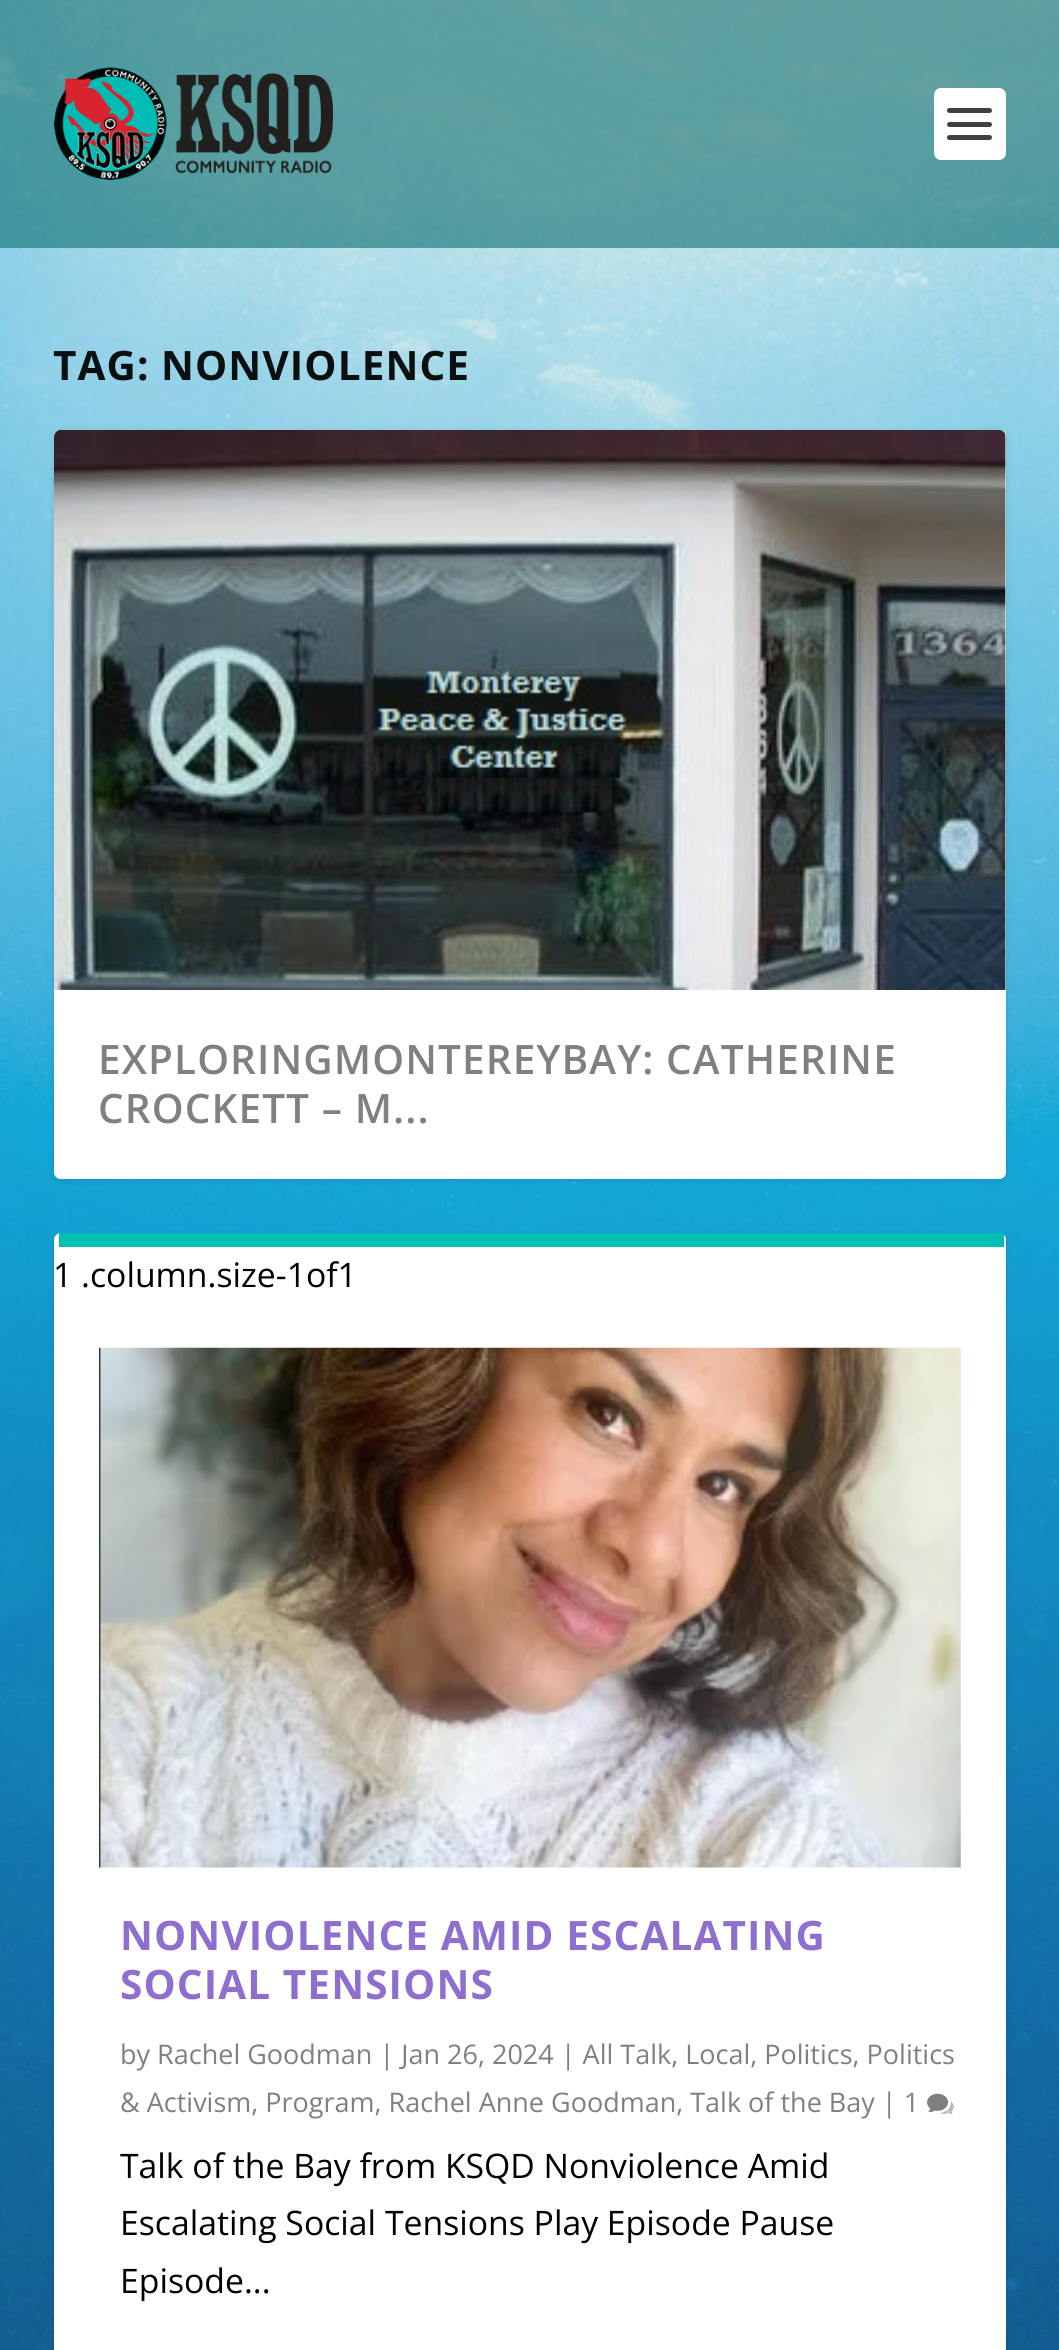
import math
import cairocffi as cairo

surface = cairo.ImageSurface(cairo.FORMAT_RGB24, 1059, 2350)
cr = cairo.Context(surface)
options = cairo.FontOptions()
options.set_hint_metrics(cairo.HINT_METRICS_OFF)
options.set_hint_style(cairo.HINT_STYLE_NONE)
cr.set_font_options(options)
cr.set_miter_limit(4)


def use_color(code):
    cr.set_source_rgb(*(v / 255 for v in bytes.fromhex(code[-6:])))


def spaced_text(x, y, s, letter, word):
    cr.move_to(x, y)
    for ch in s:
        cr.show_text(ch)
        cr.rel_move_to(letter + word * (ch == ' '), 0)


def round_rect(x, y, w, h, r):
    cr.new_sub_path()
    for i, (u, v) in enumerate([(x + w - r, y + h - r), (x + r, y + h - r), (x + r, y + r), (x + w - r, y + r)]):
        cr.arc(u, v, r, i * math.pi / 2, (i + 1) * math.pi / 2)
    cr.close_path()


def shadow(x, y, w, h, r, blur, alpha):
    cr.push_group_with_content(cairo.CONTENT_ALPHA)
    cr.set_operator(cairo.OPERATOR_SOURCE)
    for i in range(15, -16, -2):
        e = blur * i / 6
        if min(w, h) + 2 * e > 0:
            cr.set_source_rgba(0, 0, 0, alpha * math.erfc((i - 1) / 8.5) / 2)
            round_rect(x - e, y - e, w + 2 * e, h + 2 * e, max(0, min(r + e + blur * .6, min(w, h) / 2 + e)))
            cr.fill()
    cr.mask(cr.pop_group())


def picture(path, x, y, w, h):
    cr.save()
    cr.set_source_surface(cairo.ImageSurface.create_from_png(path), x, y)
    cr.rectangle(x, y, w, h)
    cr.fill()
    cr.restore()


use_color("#ffffff")
cr.paint()
picture("img1.png", 0, 0, 1059, 2350)
cr.set_source_rgba(0, 0.4, 0.408, 0.56)
cr.rectangle(0, 0, 1059, 248)
cr.fill()
picture("img2.png", 54, 67, 279, 113)
use_color("#ffffff")
round_rect(934, 88, 72, 72, 7)
cr.fill()
use_color("#404040")
round_rect(947, 108, 45, 5, 2.5)
cr.fill()
round_rect(947, 122, 45, 5, 2.5)
cr.fill()
round_rect(947, 135, 45, 5, 2.5)
cr.fill()
cr.select_font_face("Open Sans", cairo.FONT_SLANT_NORMAL, cairo.FONT_WEIGHT_BOLD)
cr.set_font_size(40.5)
use_color("#0a0f10")
spaced_text(53, 380, "TAG:", 1.1, 0)
spaced_text(161, 380, "NONVIOLENCE", 1.1, 0)
use_color("#000000")
shadow(54, 432, 952, 749, 7, 3.5, 0.1)
use_color("#ffffff")
round_rect(54, 430, 952, 749, 7)
cr.fill()
picture("img3.png", 54, 430, 952, 749)
cr.new_path()
cr.move_to(54, 990)
cr.line_to(1006, 990)
cr.line_to(1006, 1172)
cr.curve_to(1006, 1176, 1003, 1179, 999, 1179)
cr.line_to(61, 1179)
cr.curve_to(57, 1179, 54, 1176, 54, 1172)
cr.close_path()
cr.fill()
cr.select_font_face("Open Sans SemiBold")
use_color("#808080")
spaced_text(98, 1074, "EXPLORINGMONTEREYBAY: CATHERINE", 1.1, 0)
spaced_text(98, 1123, "CROCKETT – M...", 1.1, 0)
use_color("#000000")
shadow(54, 1235, 952, 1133, 7, 3.5, 0.1)
use_color("#ffffff")
round_rect(54, 1233, 952, 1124, 7)
cr.fill()
use_color("#00c0b5")
cr.rectangle(59, 1233, 945, 14)
cr.fill()
cr.select_font_face("Open Sans")
cr.set_font_size(33.75)
use_color("#000000")
cr.move_to(53, 1287)
cr.show_text("1 .column.size-1of1")
picture("img4.png", 99, 1347, 862, 521)
cr.select_font_face("Open Sans", cairo.FONT_SLANT_NORMAL, cairo.FONT_WEIGHT_BOLD)
cr.set_font_size(40.5)
use_color("#8e6ecf")
spaced_text(120, 1950, "NONVIOLENCE AMID ESCALATING", 1.1, 0)
spaced_text(120, 1999, "SOCIAL TENSIONS", 1.1, 0)
cr.select_font_face("Open Sans")
cr.set_font_size(27)
use_color("#808080")
cr.move_to(120, 2064)
cr.show_text("by Rachel Goodman | Jan 26, 2024 | All Talk, Local, Politics, Politics")
cr.move_to(120, 2112)
cr.show_text("& Activism, Program, Rachel Anne Goodman, Talk of the Bay | 1")
picture("img5.png", 927, 2093, 27, 21)
cr.set_font_size(33.75)
use_color("#000000")
cr.move_to(120, 2178)
cr.show_text("Talk of the Bay from KSQD Nonviolence Amid")
cr.move_to(120, 2235)
cr.show_text("Escalating Social Tensions Play Episode Pause")
cr.move_to(120, 2293)
cr.show_text("Episode...")
surface.write_to_png("result.png")
